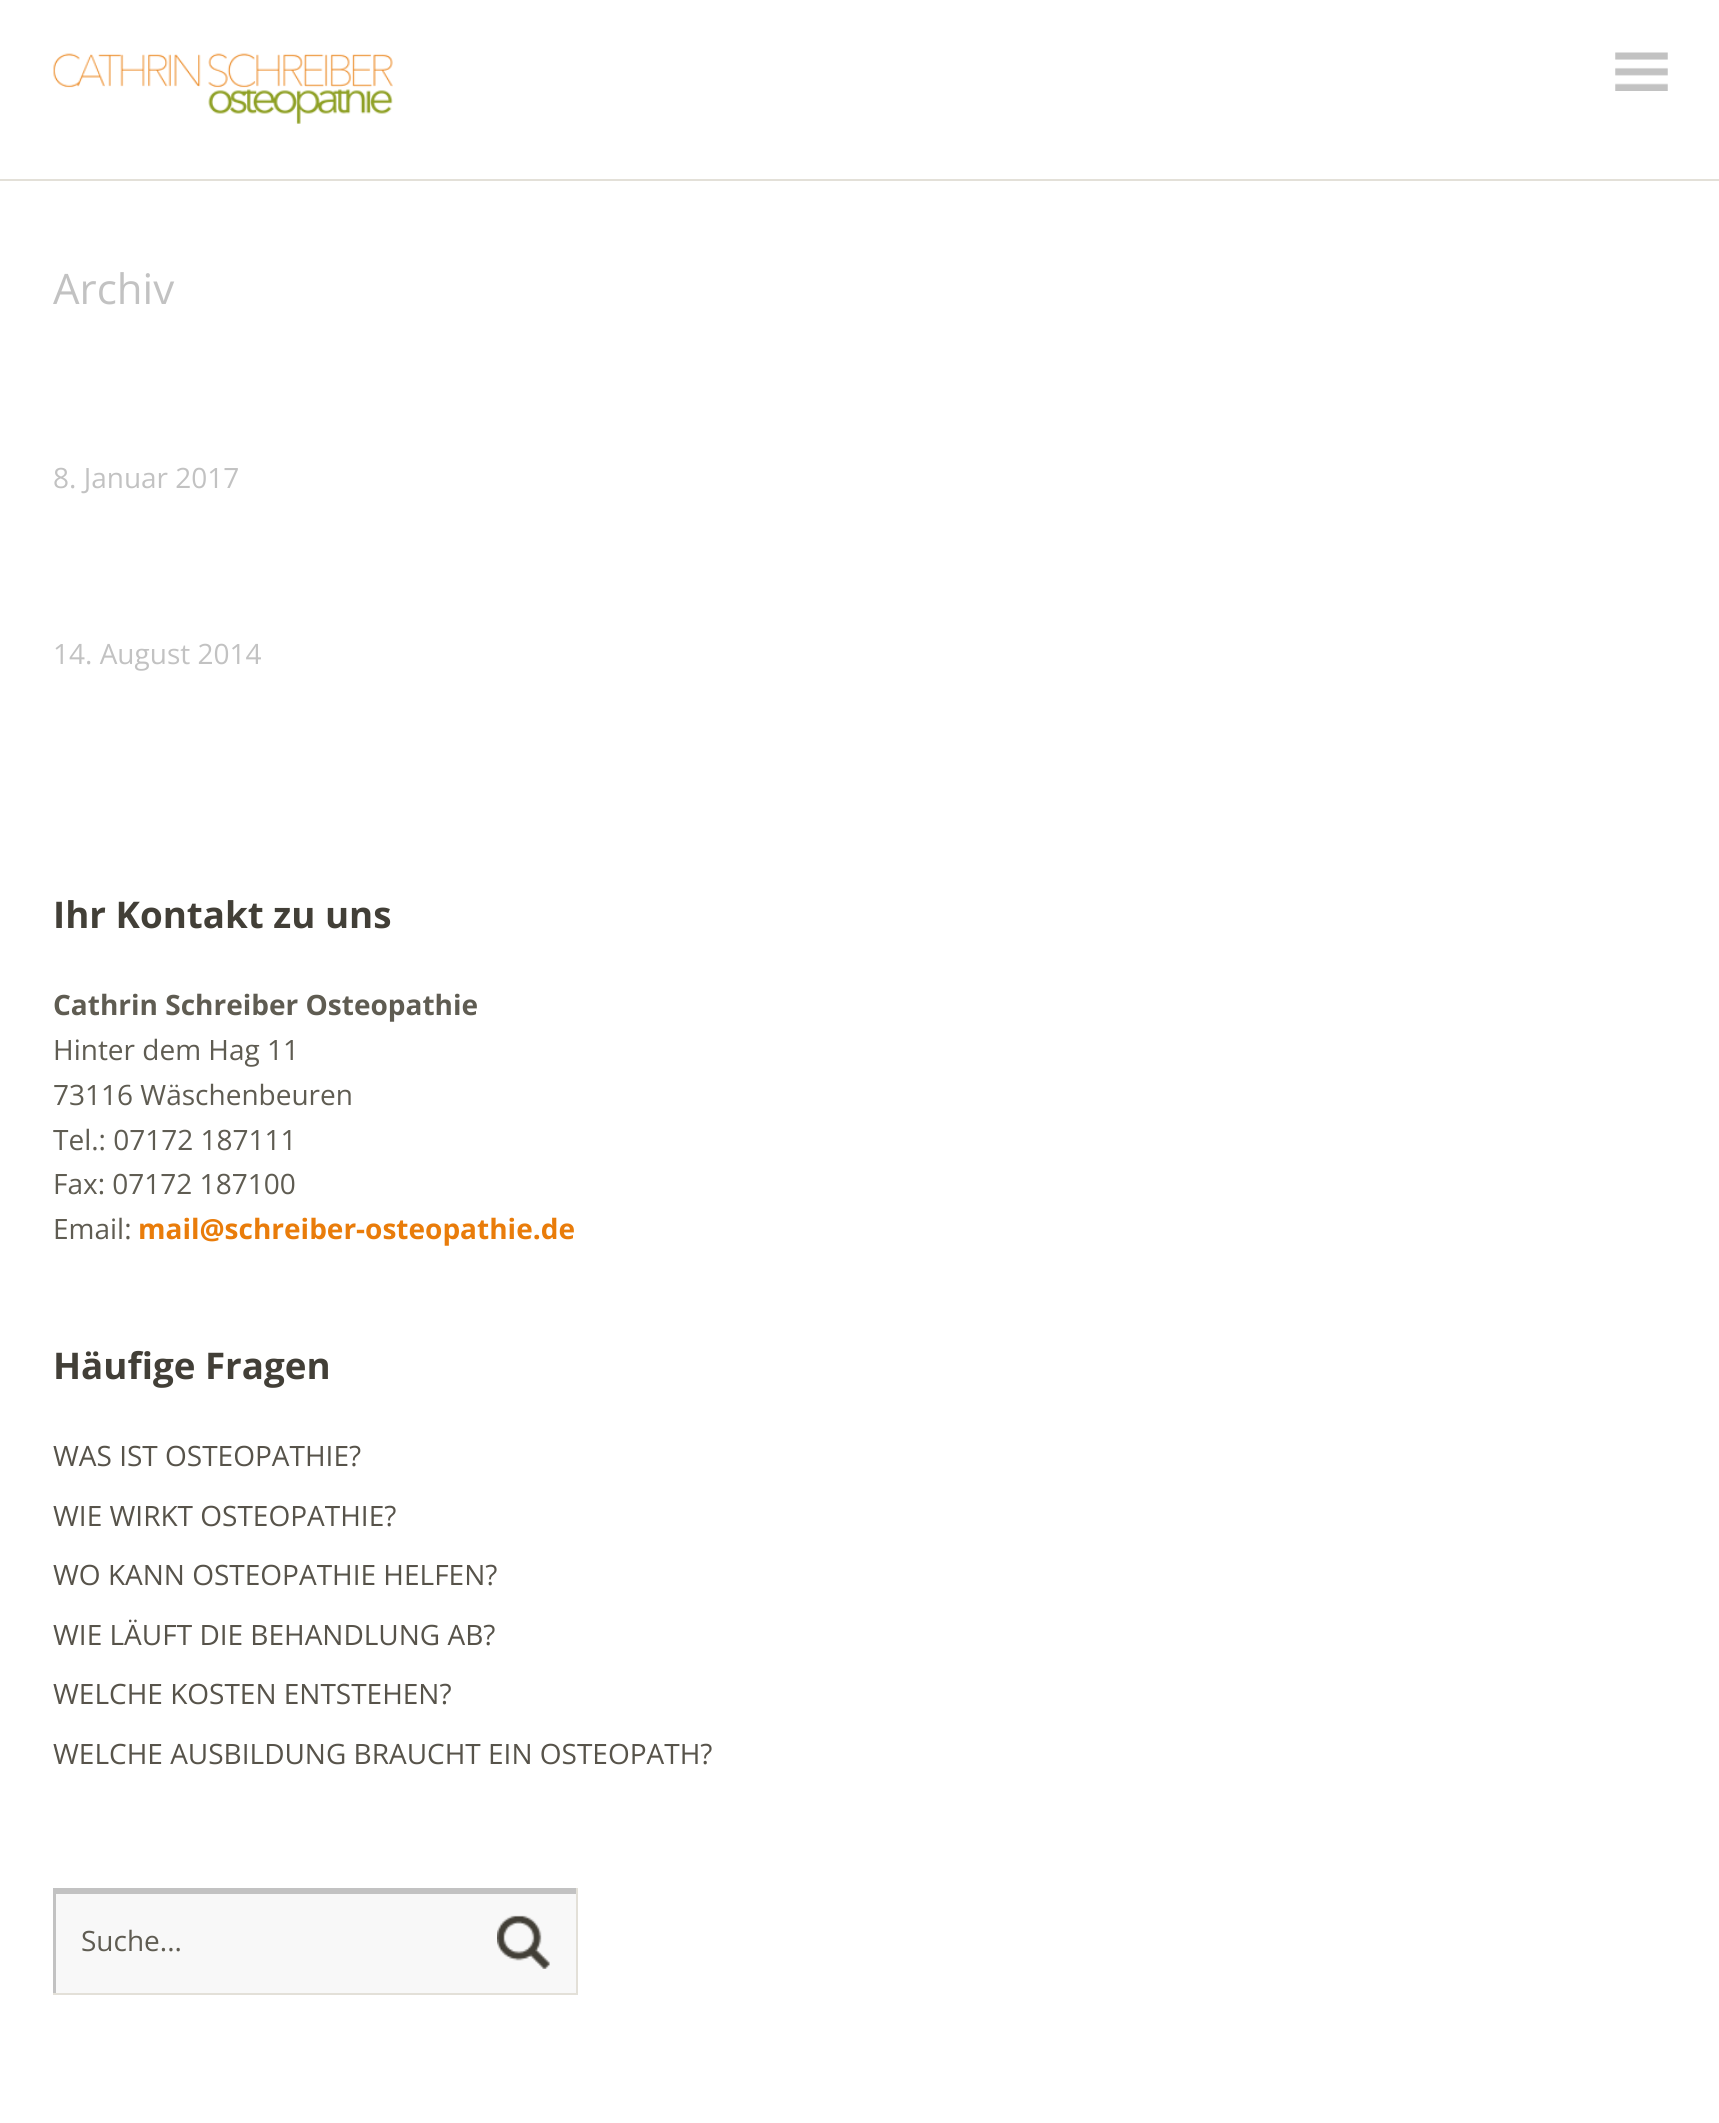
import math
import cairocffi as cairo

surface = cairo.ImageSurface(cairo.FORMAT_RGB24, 1719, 2123)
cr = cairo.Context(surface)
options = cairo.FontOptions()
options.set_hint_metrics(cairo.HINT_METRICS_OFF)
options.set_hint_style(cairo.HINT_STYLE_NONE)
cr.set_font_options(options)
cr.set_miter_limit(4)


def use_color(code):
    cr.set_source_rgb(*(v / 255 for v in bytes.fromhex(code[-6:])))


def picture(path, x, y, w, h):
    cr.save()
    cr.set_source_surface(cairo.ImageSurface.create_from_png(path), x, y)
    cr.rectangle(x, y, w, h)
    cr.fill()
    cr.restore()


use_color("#ffffff")
cr.paint()
use_color("#e3e0d8")
cr.rectangle(0, 179, 1719, 2)
cr.fill()
picture("img1.png", 53, 53, 340, 71)
picture("img2.png", 1615, 52, 53, 39)
cr.select_font_face("Open Sans")
cr.set_font_size(42)
use_color("#c2c2c2")
cr.move_to(53, 304)
cr.show_text("Archiv")
cr.set_font_size(28)
cr.move_to(53, 488)
cr.show_text("8. Januar 2017")
cr.move_to(53, 664)
cr.show_text("14. August 2014")
cr.select_font_face("Open Sans", cairo.FONT_SLANT_NORMAL, cairo.FONT_WEIGHT_BOLD)
cr.set_font_size(36.75)
use_color("#423f37")
cr.move_to(53, 928)
cr.show_text("Ihr Kontakt zu uns")
cr.set_font_size(28)
use_color("#5f5c52")
cr.move_to(53, 1015)
cr.show_text("Cathrin Schreiber Osteopathie")
cr.select_font_face("Open Sans")
cr.move_to(53, 1060)
cr.show_text("Hinter dem Hag 11")
cr.move_to(53, 1105)
cr.show_text("73116 Wäschenbeuren")
cr.move_to(53, 1150)
cr.show_text("Tel.: 07172 187111")
cr.move_to(53, 1194)
cr.show_text("Fax: 07172 187100")
cr.move_to(53, 1239)
cr.show_text("Email:")
cr.select_font_face("Open Sans", cairo.FONT_SLANT_NORMAL, cairo.FONT_WEIGHT_BOLD)
use_color("#e97c0a")
cr.move_to(138, 1239)
cr.show_text("mail@schreiber-osteopathie.de")
cr.set_font_size(36.75)
use_color("#423f37")
cr.move_to(53, 1379)
cr.show_text("Häufige Fragen")
cr.select_font_face("Open Sans")
cr.set_font_size(28)
use_color("#57534a")
cr.move_to(53, 1466)
cr.show_text("WAS IST OSTEOPATHIE?")
cr.move_to(53, 1526)
cr.show_text("WIE WIRKT OSTEOPATHIE?")
cr.move_to(53, 1585)
cr.show_text("WO KANN OSTEOPATHIE HELFEN?")
cr.move_to(53, 1645)
cr.show_text("WIE LÄUFT DIE BEHANDLUNG AB?")
cr.move_to(53, 1704)
cr.show_text("WELCHE KOSTEN ENTSTEHEN?")
cr.move_to(53, 1764)
cr.show_text("WELCHE AUSBILDUNG BRAUCHT EIN OSTEOPATH?")
use_color("#f8f8f8")
cr.rectangle(56, 1894, 520, 99)
cr.fill()
cr.save()
cr.rectangle(53, 1888, 523, 105)
cr.clip()
use_color("#c2c2c2")
cr.set_fill_rule(cairo.FILL_RULE_EVEN_ODD)
cr.new_path()
cr.move_to(-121, 1715)
cr.line_to(749, 1715)
cr.line_to(749, 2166)
cr.line_to(-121, 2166)
cr.close_path()
cr.move_to(56, 1894)
cr.line_to(579, 1894)
cr.line_to(579, 1998)
cr.line_to(56, 1998)
cr.close_path()
cr.fill()
cr.restore()
use_color("#e3e0d8")
cr.rectangle(576, 1888, 2, 107)
cr.fill()
cr.rectangle(53, 1993, 525, 2)
cr.fill()
use_color("#5f5c52")
cr.move_to(81, 1951)
cr.show_text("Suche...")
picture("img3.png", 497, 1915, 53, 54)
surface.write_to_png("result.png")
